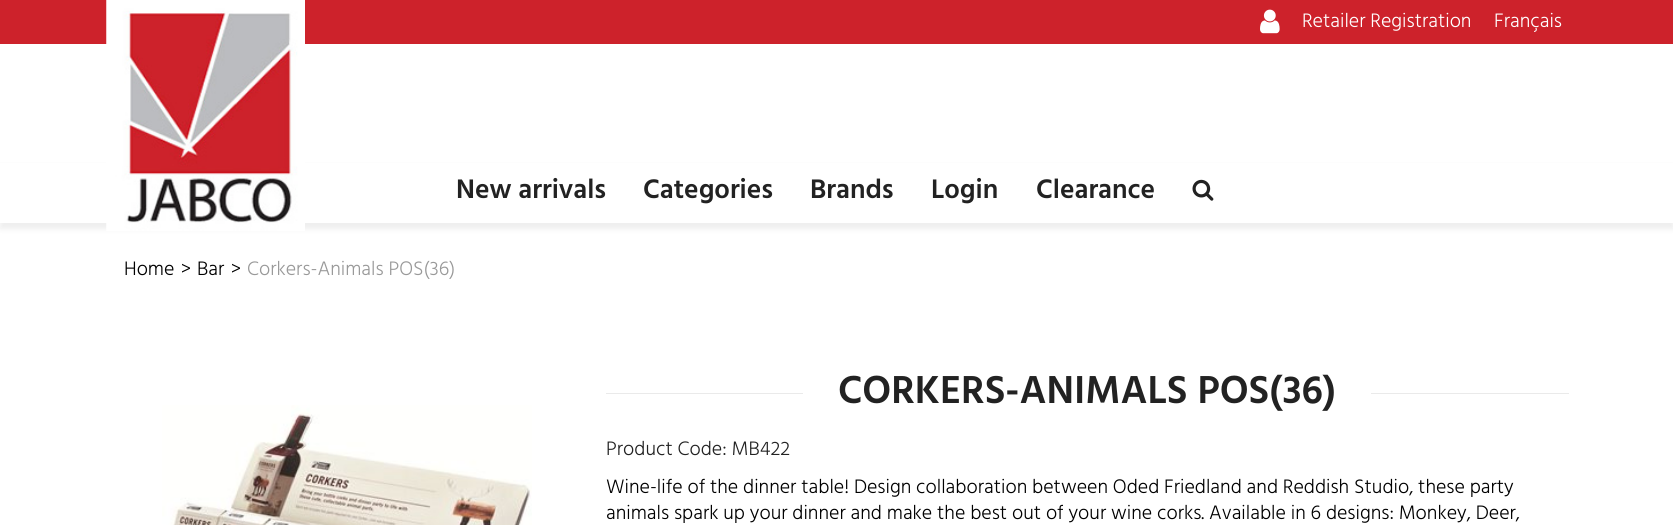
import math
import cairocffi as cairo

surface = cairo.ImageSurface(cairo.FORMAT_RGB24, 1673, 525)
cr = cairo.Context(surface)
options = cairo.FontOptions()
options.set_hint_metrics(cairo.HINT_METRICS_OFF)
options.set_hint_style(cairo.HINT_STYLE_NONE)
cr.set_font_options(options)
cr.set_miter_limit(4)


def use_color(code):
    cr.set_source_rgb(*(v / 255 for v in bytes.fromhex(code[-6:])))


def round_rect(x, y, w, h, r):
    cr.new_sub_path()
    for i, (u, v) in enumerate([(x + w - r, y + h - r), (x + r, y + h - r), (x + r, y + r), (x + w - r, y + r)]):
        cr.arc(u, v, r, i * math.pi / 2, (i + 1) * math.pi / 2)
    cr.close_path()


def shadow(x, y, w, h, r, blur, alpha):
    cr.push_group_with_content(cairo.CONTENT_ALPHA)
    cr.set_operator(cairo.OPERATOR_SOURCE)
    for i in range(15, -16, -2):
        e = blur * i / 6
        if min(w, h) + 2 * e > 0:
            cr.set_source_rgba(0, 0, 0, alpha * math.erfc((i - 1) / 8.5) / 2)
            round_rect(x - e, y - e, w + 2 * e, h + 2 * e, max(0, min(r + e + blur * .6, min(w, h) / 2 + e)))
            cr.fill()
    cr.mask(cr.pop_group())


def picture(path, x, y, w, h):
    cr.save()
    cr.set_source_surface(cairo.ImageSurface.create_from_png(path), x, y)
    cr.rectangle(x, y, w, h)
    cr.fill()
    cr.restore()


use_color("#ffffff")
cr.paint()
use_color("#cd222b")
cr.rectangle(0, 0, 1673, 44)
cr.fill()
use_color("#222222")
shadow(0, 166, 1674, 63, 0, 3, 0.08)
use_color("#ffffff")
cr.rectangle(0, 163, 1673, 60)
cr.fill()
picture("img1.png", 106, 0, 199, 231)
picture("img2.png", 1260, 9, 20, 25)
cr.select_font_face("Hind Light")
cr.set_font_size(20)
cr.move_to(1302, 27)
cr.show_text("Retailer Registration")
cr.move_to(1494, 27)
cr.show_text("Français")
cr.select_font_face("Hind SemiBold")
cr.set_font_size(27.5)
use_color("#222222")
cr.move_to(456, 198)
cr.show_text("New arrivals")
cr.move_to(643, 198)
cr.show_text("Categories")
cr.move_to(810, 198)
cr.show_text("Brands")
cr.move_to(931, 198)
cr.show_text("Login")
cr.move_to(1036, 198)
cr.show_text("Clearance")
picture("img3.png", 1192, 179, 22, 22)
cr.select_font_face("Hind Light")
cr.set_font_size(20)
use_color("#000000")
cr.move_to(124, 275)
cr.show_text("Home")
cr.move_to(181, 275)
cr.show_text(">")
cr.move_to(197, 275)
cr.show_text("Bar")
cr.move_to(231, 275)
cr.show_text(">")
use_color("#999999")
cr.move_to(247, 275)
cr.show_text("Corkers-Animals POS(36)")
picture("img4.png", 162, 405, 370, 120)
use_color("#eaeaea")
cr.rectangle(606, 393, 197, 1)
cr.fill()
cr.select_font_face("Hind SemiBold")
cr.set_font_size(40)
use_color("#222222")
cr.move_to(838, 403)
cr.show_text("CORKERS-ANIMALS POS(36)")
use_color("#eaeaea")
cr.rectangle(1371, 393, 198, 1)
cr.fill()
cr.select_font_face("Hind Light")
cr.set_font_size(20)
use_color("#222222")
cr.move_to(606, 455)
cr.show_text("Product Code: MB422")
use_color("#000000")
cr.move_to(606, 493)
cr.show_text("Wine-life of the dinner table! Design collaboration between Oded Friedland and Reddish Studio, these party")
cr.move_to(606, 519)
cr.show_text("animals spark up your dinner and make the best out of your wine corks. Available in 6 designs: Monkey, Deer,")
surface.write_to_png("result.png")
